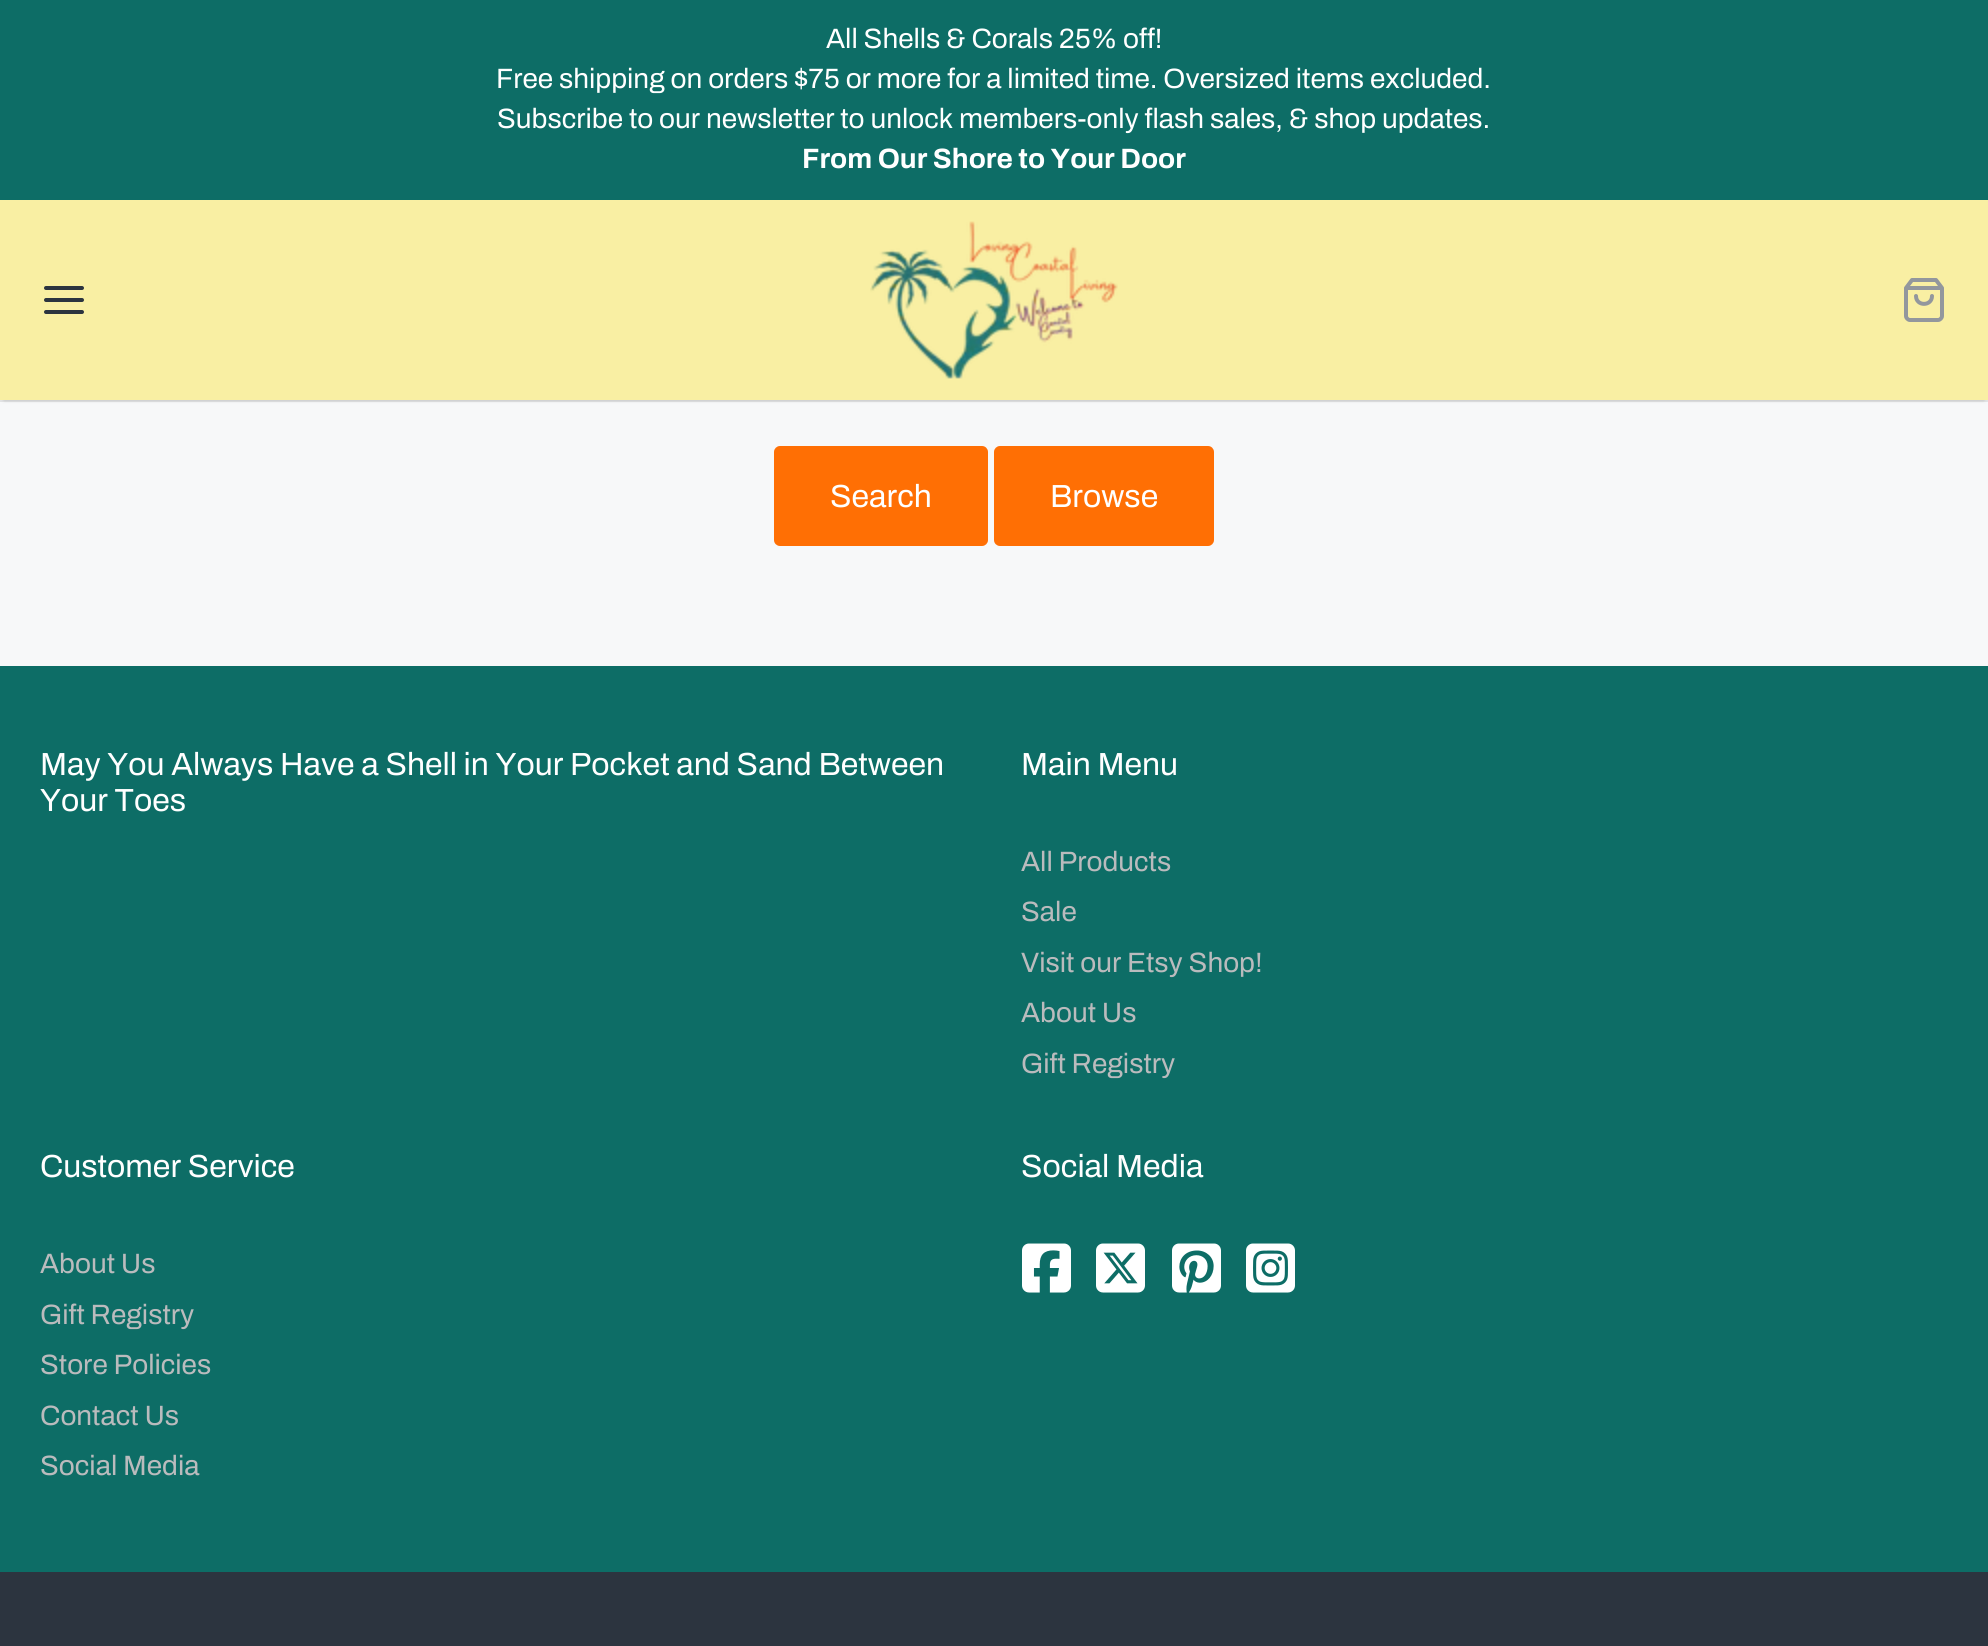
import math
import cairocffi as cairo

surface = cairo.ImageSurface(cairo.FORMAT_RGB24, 1988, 1646)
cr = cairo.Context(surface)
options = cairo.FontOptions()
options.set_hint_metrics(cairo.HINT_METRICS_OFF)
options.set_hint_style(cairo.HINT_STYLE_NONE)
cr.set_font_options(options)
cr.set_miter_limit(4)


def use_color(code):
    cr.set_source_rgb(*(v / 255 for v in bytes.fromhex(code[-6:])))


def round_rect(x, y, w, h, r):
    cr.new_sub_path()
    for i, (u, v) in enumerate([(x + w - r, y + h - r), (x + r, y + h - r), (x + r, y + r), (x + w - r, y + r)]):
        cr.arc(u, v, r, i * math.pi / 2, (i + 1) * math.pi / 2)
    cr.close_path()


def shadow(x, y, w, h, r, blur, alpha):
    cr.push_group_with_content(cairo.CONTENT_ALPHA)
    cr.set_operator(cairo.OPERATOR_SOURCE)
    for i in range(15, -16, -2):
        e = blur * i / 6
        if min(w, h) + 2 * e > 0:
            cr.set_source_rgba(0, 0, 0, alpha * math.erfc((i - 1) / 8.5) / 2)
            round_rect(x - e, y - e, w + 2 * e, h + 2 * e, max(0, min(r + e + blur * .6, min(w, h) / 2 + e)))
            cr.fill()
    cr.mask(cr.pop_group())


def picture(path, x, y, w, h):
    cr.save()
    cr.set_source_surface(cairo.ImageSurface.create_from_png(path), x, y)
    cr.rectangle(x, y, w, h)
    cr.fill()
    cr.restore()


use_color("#f7f8f9")
cr.paint()
use_color("#e3e4e5")
cr.rectangle(0, 400, 1988, 2)
cr.fill()
use_color("#0d6d66")
cr.rectangle(0, 0, 1988, 200)
cr.fill()
cr.select_font_face("Archivo")
cr.set_font_size(28)
use_color("#ffffff")
cr.move_to(826, 48)
cr.show_text("All Shells & Corals 25% off!")
cr.move_to(496, 88)
cr.show_text("Free shipping on orders $75 or more for a limited time. Oversized items excluded.")
cr.move_to(497, 128)
cr.show_text("Subscribe to our newsletter to unlock members-only flash sales, & shop updates.")
cr.select_font_face("Archivo", cairo.FONT_SLANT_NORMAL, cairo.FONT_WEIGHT_BOLD)
cr.move_to(802, 168)
cr.show_text("From Our Shore to Your Door")
use_color("#000000")
shadow(4, 208, 1980, 192, 0, 2, 0.2)
use_color("#f9efa3")
cr.rectangle(0, 200, 1988, 200)
cr.fill()
cr.new_path()
cr.move_to(46, 300)
cr.line_to(82, 300)
cr.move_to(46, 288)
cr.line_to(82, 288)
cr.move_to(46, 312)
cr.line_to(82, 312)
use_color("#2c343f")
cr.set_line_width(4)
cr.set_line_cap(cairo.LINE_CAP_ROUND)
cr.set_line_join(cairo.LINE_JOIN_ROUND)
cr.stroke()
picture("img1.png", 870, 221, 248, 158)
cr.new_path()
cr.move_to(1912, 280)
cr.line_to(1906, 288)
cr.line_to(1906, 316)
cr.curve_to(1906, 318, 1908, 320, 1910, 320)
cr.line_to(1938, 320)
cr.curve_to(1940, 320, 1942, 318, 1942, 316)
cr.line_to(1942, 288)
cr.line_to(1936, 280)
cr.close_path()
cr.move_to(1906, 288)
cr.line_to(1942, 288)
cr.move_to(1932, 296)
cr.curve_to(1932, 306.5, 1916, 306.5, 1916, 296)
use_color("#93979d")
cr.stroke()
use_color("#ff6f04")
round_rect(776, 448, 210, 96, 4)
cr.fill_preserve()
cr.set_line_cap(cairo.LINE_CAP_BUTT)
cr.set_line_join(cairo.LINE_JOIN_MITER)
cr.stroke()
cr.select_font_face("Archivo")
cr.set_font_size(32)
use_color("#ffffff")
cr.move_to(830, 507)
cr.show_text("Search")
use_color("#ff6f04")
round_rect(996, 448, 216, 96, 4)
cr.fill_preserve()
cr.stroke()
use_color("#ffffff")
cr.move_to(1050, 507)
cr.show_text("Browse")
use_color("#0d6d66")
cr.rectangle(0, 666, 1988, 906)
cr.fill()
use_color("#ffffff")
cr.move_to(40, 775)
cr.show_text("May You Always Have a Shell in Your Pocket and Sand Between")
cr.move_to(40, 811)
cr.show_text("Your Toes")
cr.move_to(1021, 775)
cr.show_text("Main Menu")
cr.set_font_size(28)
use_color("#babbbd")
cr.move_to(1021, 871)
cr.show_text("All Products")
cr.move_to(1021, 921)
cr.show_text("Sale")
cr.move_to(1021, 972)
cr.show_text("Visit our Etsy Shop!")
cr.move_to(1021, 1022)
cr.show_text("About Us")
cr.move_to(1021, 1073)
cr.show_text("Gift Registry")
cr.set_font_size(32)
use_color("#ffffff")
cr.move_to(40, 1177)
cr.show_text("Customer Service")
cr.set_font_size(28)
use_color("#babbbd")
cr.move_to(40, 1273)
cr.show_text("About Us")
cr.move_to(40, 1324)
cr.show_text("Gift Registry")
cr.move_to(40, 1374)
cr.show_text("Store Policies")
cr.move_to(40, 1425)
cr.show_text("Contact Us")
cr.move_to(40, 1475)
cr.show_text("Social Media")
cr.set_font_size(32)
use_color("#ffffff")
cr.move_to(1021, 1177)
cr.show_text("Social Media")
picture("img2.png", 1022, 1243, 49, 50)
picture("img3.png", 1096, 1243, 49, 50)
picture("img4.png", 1172, 1243, 49, 50)
picture("img5.png", 1246, 1243, 49, 50)
use_color("#2c343f")
cr.rectangle(0, 1572, 1988, 74)
cr.fill()
surface.write_to_png("result.png")
